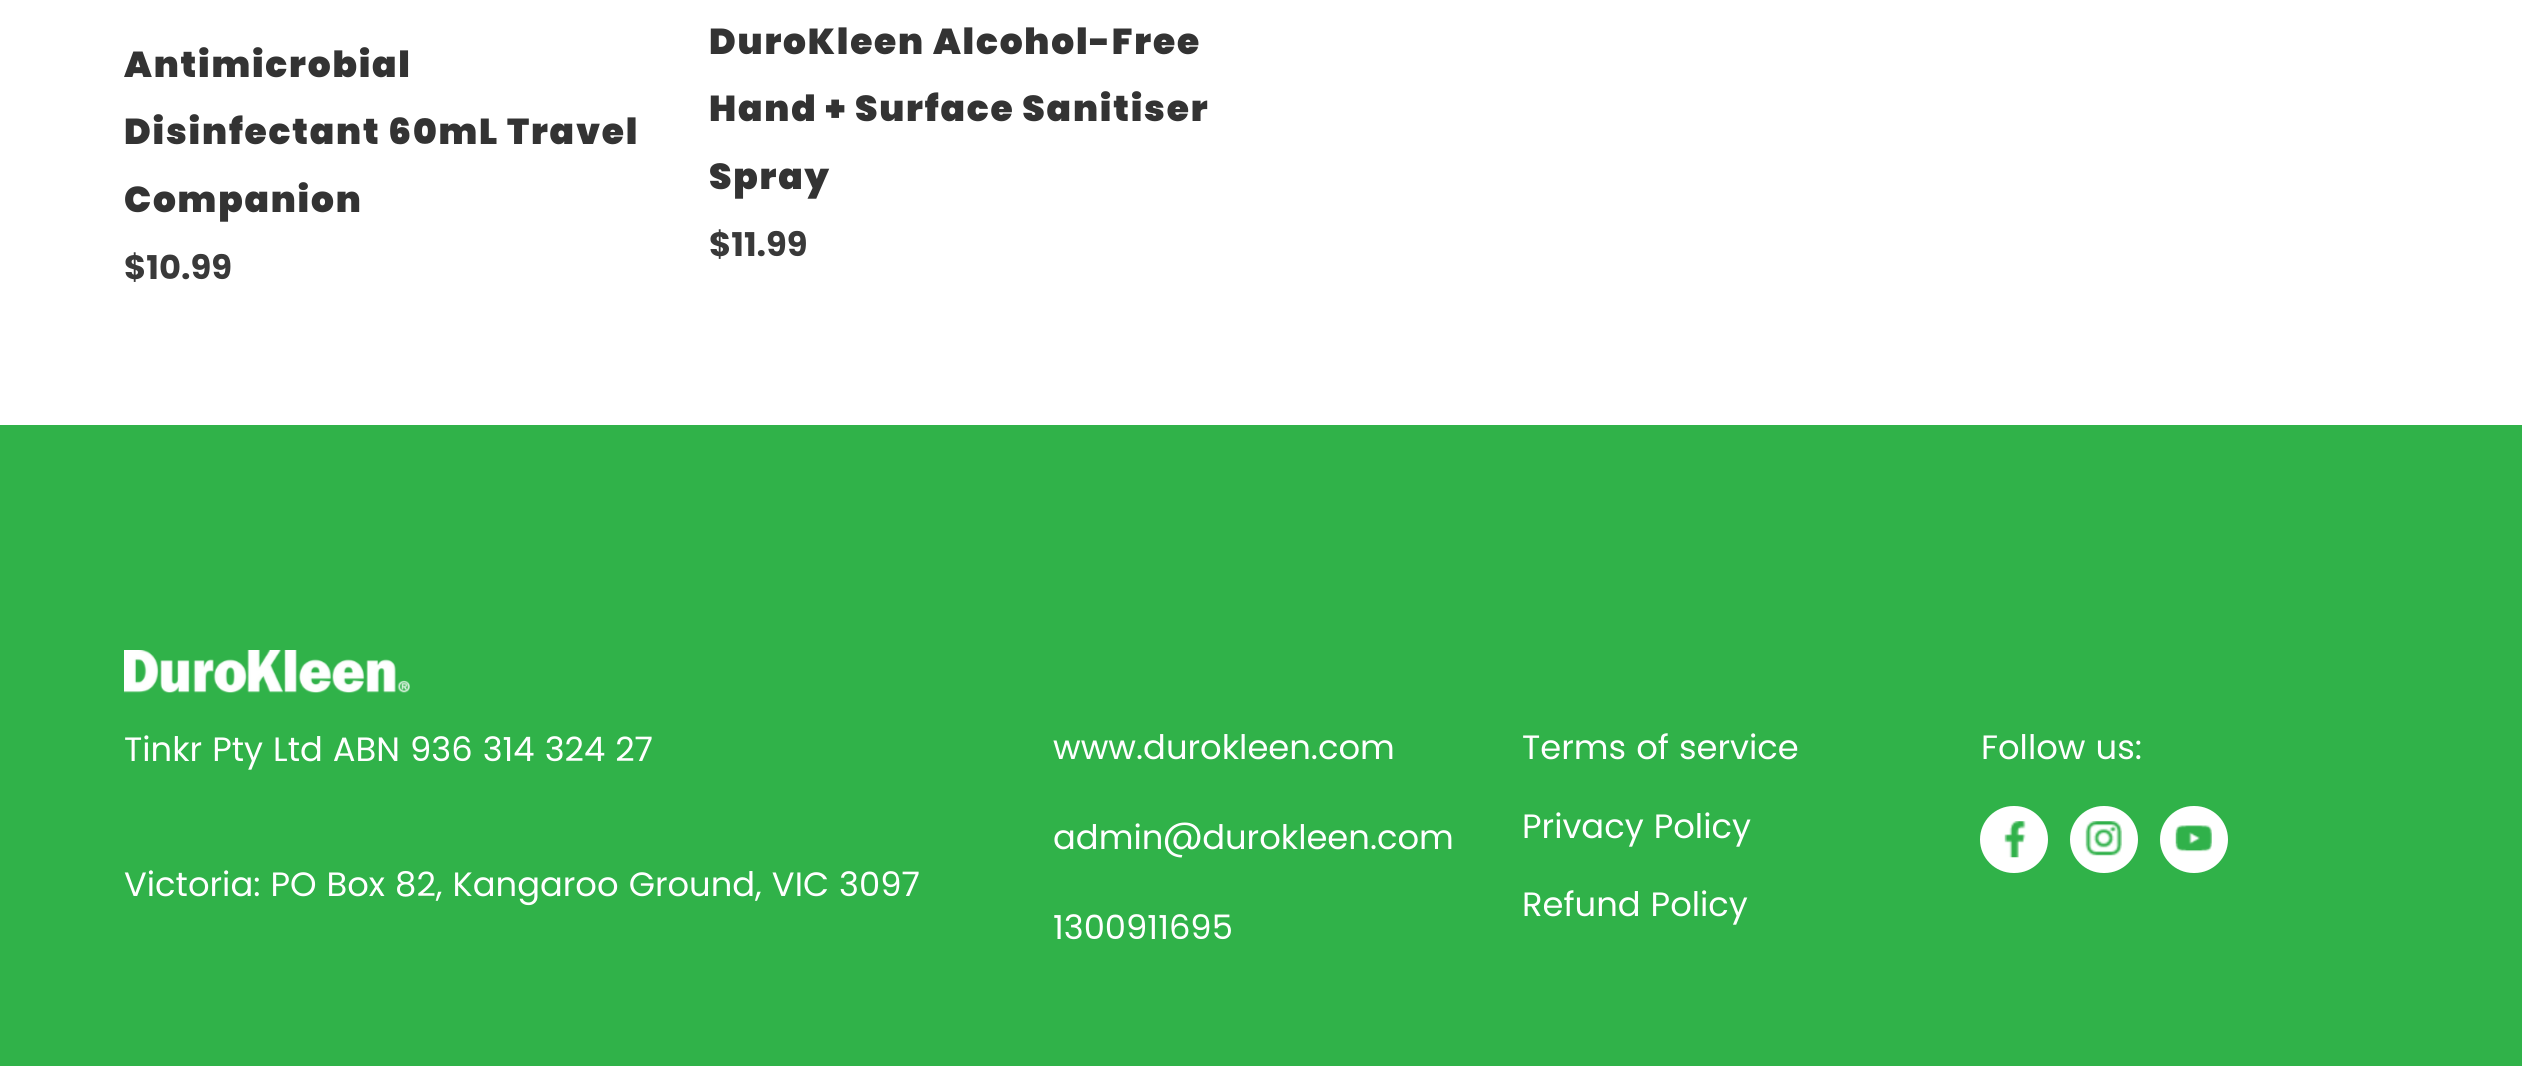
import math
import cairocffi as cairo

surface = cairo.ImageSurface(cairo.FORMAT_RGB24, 2522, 1066)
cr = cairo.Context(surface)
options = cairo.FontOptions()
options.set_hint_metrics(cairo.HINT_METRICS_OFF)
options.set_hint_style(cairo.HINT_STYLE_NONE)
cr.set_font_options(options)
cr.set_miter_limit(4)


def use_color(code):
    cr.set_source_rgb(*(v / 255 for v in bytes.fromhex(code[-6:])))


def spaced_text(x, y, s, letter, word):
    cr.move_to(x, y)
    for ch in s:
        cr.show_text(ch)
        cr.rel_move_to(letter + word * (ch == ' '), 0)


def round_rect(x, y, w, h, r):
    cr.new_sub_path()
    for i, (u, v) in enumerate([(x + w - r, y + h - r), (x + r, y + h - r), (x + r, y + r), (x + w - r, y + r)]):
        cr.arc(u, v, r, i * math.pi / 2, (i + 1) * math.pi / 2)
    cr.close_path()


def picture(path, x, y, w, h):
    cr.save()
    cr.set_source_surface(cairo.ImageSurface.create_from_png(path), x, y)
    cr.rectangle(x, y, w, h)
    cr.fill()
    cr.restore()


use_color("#ffffff")
cr.paint()
cr.select_font_face("Poppins Black")
cr.set_font_size(36)
use_color("#333333")
spaced_text(124, 77, "Antimicrobial", 1.8, 0)
spaced_text(124, 144, "Disinfectant 60mL Travel", 1.8, 0)
spaced_text(124, 212, "Companion", 1.8, 0)
cr.select_font_face("Poppins", cairo.FONT_SLANT_NORMAL, cairo.FONT_WEIGHT_BOLD)
cr.set_font_size(33.75)
use_color("#393939")
cr.move_to(124, 279)
cr.show_text("$10.99")
cr.select_font_face("Poppins Black")
cr.set_font_size(36)
use_color("#333333")
spaced_text(709, 54, "DuroKleen Alcohol-Free", 1.8, 0)
spaced_text(709, 121, "Hand + Surface Sanitiser", 1.8, 0)
spaced_text(709, 189, "Spray", 1.8, 0)
cr.select_font_face("Poppins", cairo.FONT_SLANT_NORMAL, cairo.FONT_WEIGHT_BOLD)
cr.set_font_size(33.75)
use_color("#393939")
cr.move_to(709, 256)
cr.show_text("$11.99")
use_color("#30b249")
cr.rectangle(0, 425, 2522, 641)
cr.fill()
picture("img1.png", 124, 650, 286, 43)
cr.select_font_face("Poppins")
use_color("#ffffff")
cr.move_to(124, 761)
cr.show_text("Tinkr Pty Ltd ABN 936 314 324 27")
cr.move_to(124, 896)
cr.show_text("Victoria: PO Box 82, Kangaroo Ground, VIC 3097")
cr.move_to(1053, 759)
cr.show_text("www.durokleen.com")
cr.move_to(1053, 849)
cr.show_text("admin@durokleen.com")
cr.move_to(1053, 939)
cr.show_text("1300911695")
cr.move_to(1522, 759)
cr.show_text("Terms of service")
cr.move_to(1522, 838)
cr.show_text("Privacy Policy")
cr.move_to(1522, 916)
cr.show_text("Refund Policy")
cr.move_to(1981, 759)
cr.show_text("Follow us:")
round_rect(1980, 806, 68, 67, 33.5)
cr.fill()
picture("img2.png", 2004, 821, 22, 37)
round_rect(2070, 806, 68, 67, 33.5)
cr.fill()
picture("img3.png", 2085, 821, 37, 35)
round_rect(2160, 806, 68, 67, 33.5)
cr.fill()
picture("img4.png", 2175, 825, 37, 27)
surface.write_to_png("result.png")
